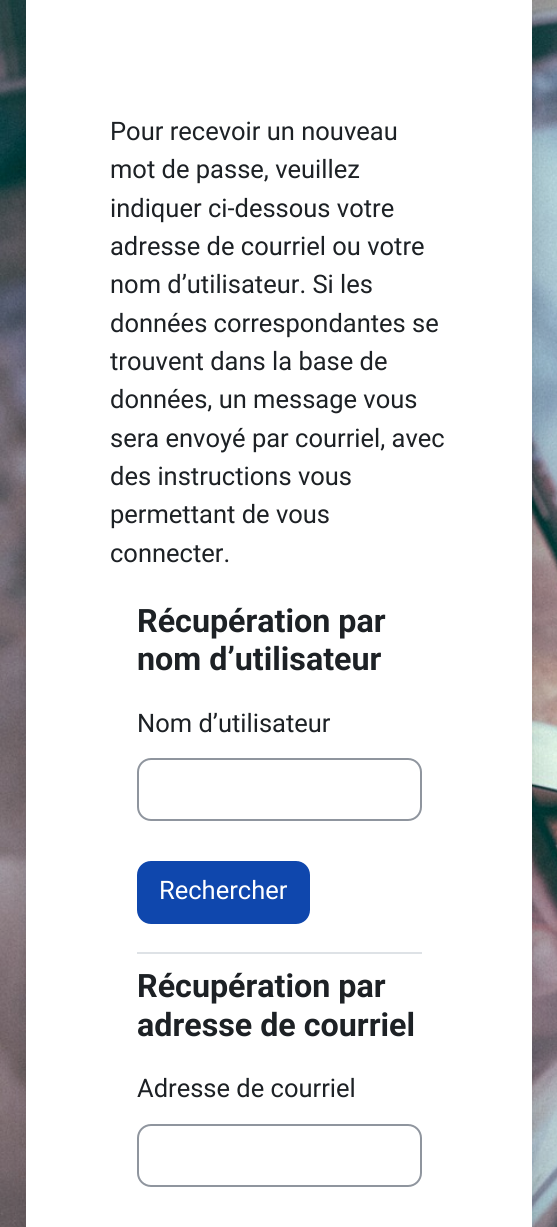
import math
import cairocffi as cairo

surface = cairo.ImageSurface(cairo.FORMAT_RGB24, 557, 1227)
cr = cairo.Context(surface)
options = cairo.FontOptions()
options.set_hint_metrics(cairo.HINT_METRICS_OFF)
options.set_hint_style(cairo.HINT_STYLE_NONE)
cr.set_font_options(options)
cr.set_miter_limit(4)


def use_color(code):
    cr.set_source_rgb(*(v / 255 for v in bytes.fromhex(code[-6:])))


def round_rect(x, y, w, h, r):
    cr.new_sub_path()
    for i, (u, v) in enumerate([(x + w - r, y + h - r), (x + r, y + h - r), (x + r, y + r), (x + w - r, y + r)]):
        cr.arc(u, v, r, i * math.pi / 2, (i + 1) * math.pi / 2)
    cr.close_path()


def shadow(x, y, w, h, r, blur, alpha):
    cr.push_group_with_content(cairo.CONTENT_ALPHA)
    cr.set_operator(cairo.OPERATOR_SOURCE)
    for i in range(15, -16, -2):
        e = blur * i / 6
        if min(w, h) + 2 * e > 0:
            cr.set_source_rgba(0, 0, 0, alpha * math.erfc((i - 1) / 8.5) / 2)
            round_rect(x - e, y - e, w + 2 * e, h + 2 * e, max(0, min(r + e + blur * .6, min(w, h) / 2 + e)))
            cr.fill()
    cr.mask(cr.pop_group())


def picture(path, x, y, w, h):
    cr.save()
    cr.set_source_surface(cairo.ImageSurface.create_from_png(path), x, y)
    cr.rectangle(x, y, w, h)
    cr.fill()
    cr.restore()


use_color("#ffffff")
cr.paint()
picture("img1.png", 0, 0, 557, 1227)
use_color("#000000")
shadow(26, 14, 506, 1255, 0, 14, 0.15)
use_color("#ffffff")
cr.rectangle(26, 0, 506, 1227)
cr.fill()
cr.select_font_face("Roboto")
cr.set_font_size(25.5)
use_color("#1d2125")
cr.move_to(110, 140)
cr.show_text("Pour recevoir un nouveau")
cr.move_to(110, 178)
cr.show_text("mot de passe, veuillez")
cr.move_to(110, 217)
cr.show_text("indiquer ci-dessous votre")
cr.move_to(110, 255)
cr.show_text("adresse de courriel ou votre")
cr.move_to(110, 293)
cr.show_text("nom d’utilisateur. Si les")
cr.move_to(110, 332)
cr.show_text("données correspondantes se")
cr.move_to(110, 370)
cr.show_text("trouvent dans la base de")
cr.move_to(110, 408)
cr.show_text("données, un message vous")
cr.move_to(110, 447)
cr.show_text("sera envoyé par courriel, avec")
cr.move_to(110, 485)
cr.show_text("des instructions vous")
cr.move_to(110, 523)
cr.show_text("permettant de vous")
cr.move_to(110, 562)
cr.show_text("connecter.")
use_color("#dee2e6")
cr.rectangle(137, 952, 285, 2)
cr.fill()
cr.select_font_face("Roboto", cairo.FONT_SLANT_NORMAL, cairo.FONT_WEIGHT_BOLD)
cr.set_font_size(32.25)
use_color("#1d2125")
cr.move_to(137, 632)
cr.show_text("Récupération par")
cr.move_to(137, 670)
cr.show_text("nom d’utilisateur")
cr.select_font_face("Roboto")
cr.set_font_size(25.5)
cr.move_to(137, 732)
cr.show_text("Nom d’utilisateur")
round_rect(138, 759, 283, 61, 13)
use_color("#8f959e")
cr.stroke()
use_color("#0f47ad")
round_rect(138, 862, 171, 61, 13)
cr.fill_preserve()
cr.stroke()
use_color("#ffffff")
cr.move_to(159, 899)
cr.show_text("Rechercher")
cr.select_font_face("Roboto", cairo.FONT_SLANT_NORMAL, cairo.FONT_WEIGHT_BOLD)
cr.set_font_size(32.25)
use_color("#1d2125")
cr.move_to(137, 997)
cr.show_text("Récupération par")
cr.move_to(137, 1036)
cr.show_text("adresse de courriel")
cr.select_font_face("Roboto")
cr.set_font_size(25.5)
cr.move_to(137, 1097)
cr.show_text("Adresse de courriel")
round_rect(138, 1125, 283, 61, 13)
use_color("#8f959e")
cr.stroke()
surface.write_to_png("result.png")
